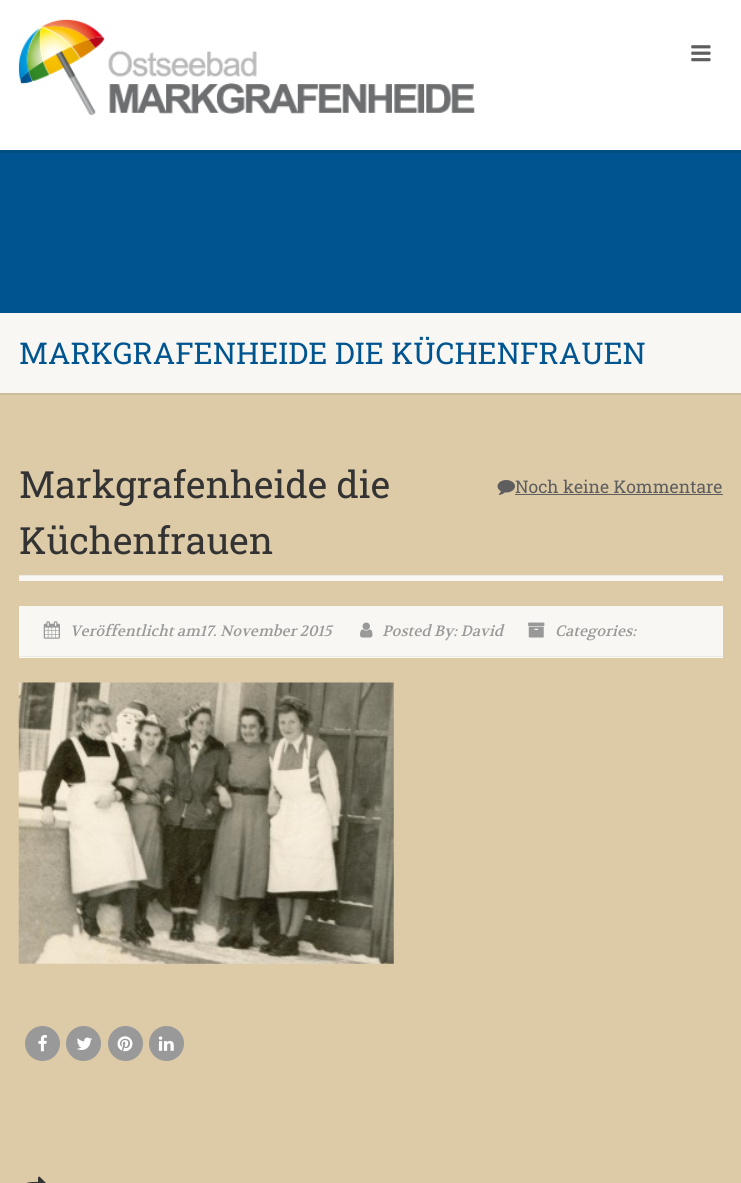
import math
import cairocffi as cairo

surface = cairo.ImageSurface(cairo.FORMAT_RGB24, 741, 1183)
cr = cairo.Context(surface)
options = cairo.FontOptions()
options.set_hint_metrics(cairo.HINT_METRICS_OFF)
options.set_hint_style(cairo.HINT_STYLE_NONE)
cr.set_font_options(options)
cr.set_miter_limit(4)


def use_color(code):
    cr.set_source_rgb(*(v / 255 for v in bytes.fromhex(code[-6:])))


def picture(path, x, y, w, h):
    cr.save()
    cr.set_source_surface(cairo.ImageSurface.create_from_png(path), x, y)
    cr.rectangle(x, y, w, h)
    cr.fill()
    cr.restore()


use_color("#ffffff")
cr.paint()
use_color("#004d83")
cr.rectangle(0, 150, 741, 3)
cr.fill()
picture("img1.png", 18, 19, 457, 96)
picture("img2.png", 691, 45, 20, 17)
use_color("#005591")
cr.rectangle(0, 153, 741, 160)
cr.fill()
use_color("#f8f7f3")
cr.rectangle(0, 313, 741, 80)
cr.fill()
cr.select_font_face("Roboto Slab")
cr.set_font_size(30)
use_color("#005591")
cr.move_to(19, 364)
cr.show_text("MARKGRAFENHEIDE DIE KÜCHENFRAUEN")
use_color("#ddcba8")
cr.rectangle(0, 395, 741, 788)
cr.fill()
use_color("#cebd9c")
cr.rectangle(0, 393, 741, 2)
cr.fill()
use_color("#eceae4")
cr.rectangle(19, 575, 704, 1)
cr.fill()
cr.set_font_size(37.5)
use_color("#333333")
cr.move_to(19, 498)
cr.show_text("Markgrafenheide die")
cr.move_to(19, 554)
cr.show_text("Küchenfrauen")
picture("img3.png", 497, 480, 18, 15)
cr.set_font_size(17.5)
use_color("#5e5e5e")
cr.move_to(515, 493)
cr.show_text("Noch keine Kommentare")
cr.rectangle(515, 494, 208, 1)
cr.fill()
use_color("#f8f7f3")
cr.rectangle(19, 576, 704, 5)
cr.fill()
cr.rectangle(19, 606, 704, 52)
cr.fill()
use_color("#eceae4")
cr.rectangle(19, 656, 704, 1)
cr.fill()
picture("img4.png", 43, 621, 17, 18)
cr.select_font_face("Volkhov", cairo.FONT_SLANT_ITALIC)
cr.set_font_size(15)
use_color("#999999")
cr.move_to(70, 636)
cr.show_text("Veröffentlicht am17. November 2015")
picture("img5.png", 360, 622, 13, 16)
cr.move_to(382, 636)
cr.show_text("Posted By: David")
picture("img6.png", 528, 622, 17, 16)
cr.move_to(555, 636)
cr.show_text("Categories:")
picture("img7.png", 18, 682, 376, 282)
cr.arc(42.5, 1043.5, 17.5, 0, 2 * math.pi)
cr.fill()
picture("img8.png", 38, 1035, 9, 17)
cr.arc(83.5, 1043.5, 17.5, 0, 2 * math.pi)
cr.fill()
picture("img9.png", 77, 1037, 15, 13)
cr.arc(125.5, 1043.5, 17.5, 0, 2 * math.pi)
cr.fill()
picture("img10.png", 117, 1036, 16, 16)
cr.arc(166.5, 1043.5, 17.5, 0, 2 * math.pi)
cr.fill()
picture("img11.png", 158, 1036, 16, 15)
picture("img12.png", 26, 1176, 20, 7)
surface.write_to_png("result.png")
